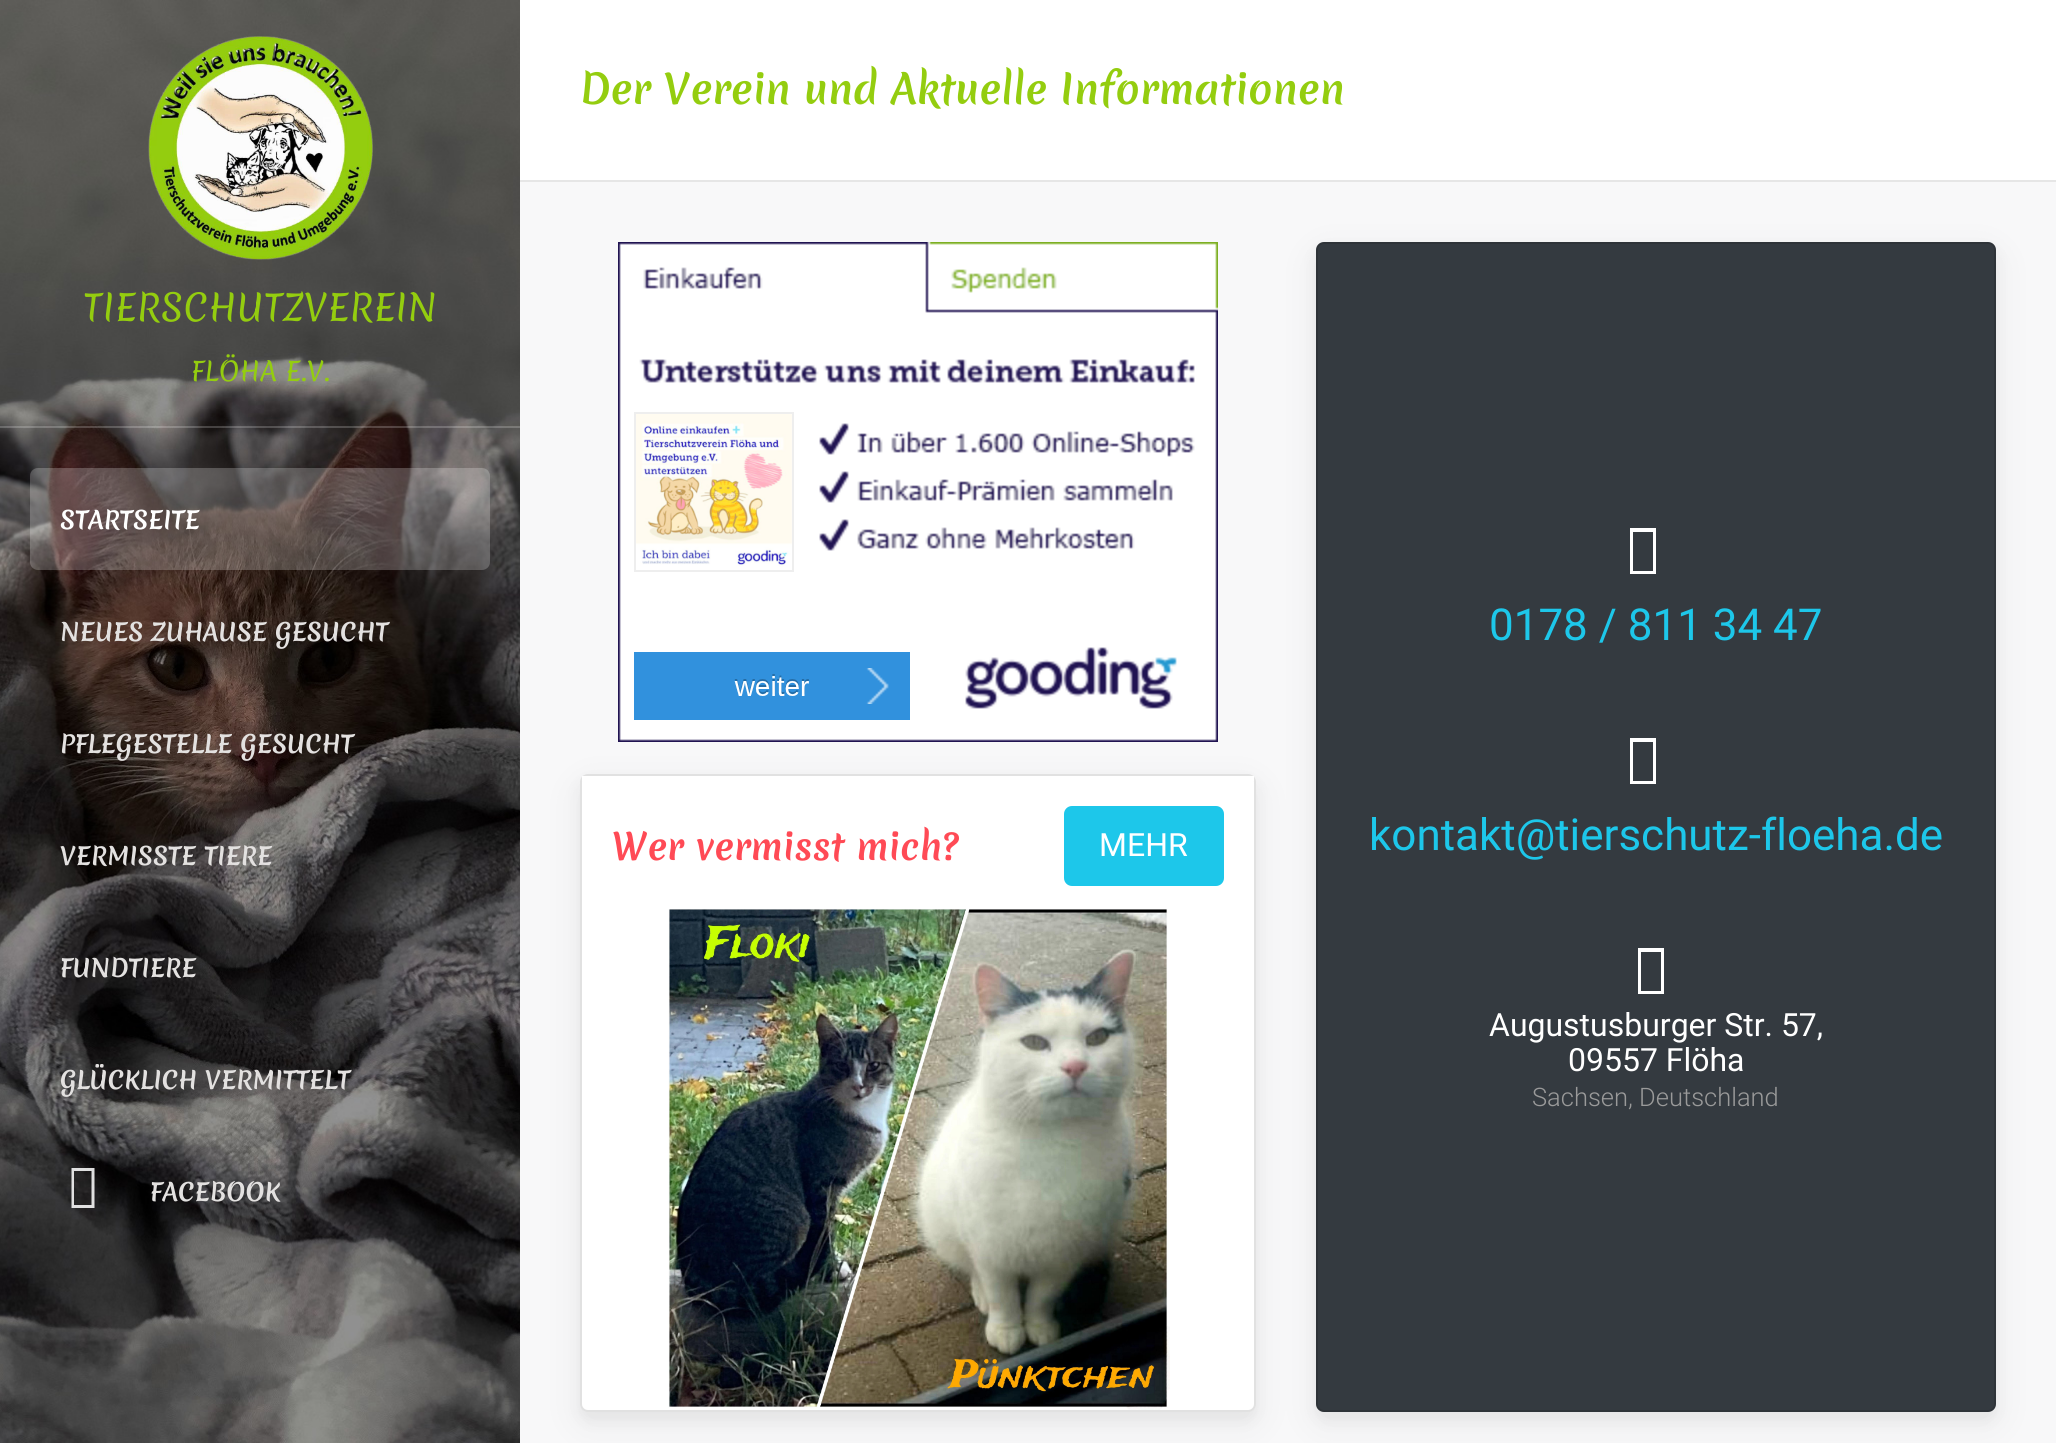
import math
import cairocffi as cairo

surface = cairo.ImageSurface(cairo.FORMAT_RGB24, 2056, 1443)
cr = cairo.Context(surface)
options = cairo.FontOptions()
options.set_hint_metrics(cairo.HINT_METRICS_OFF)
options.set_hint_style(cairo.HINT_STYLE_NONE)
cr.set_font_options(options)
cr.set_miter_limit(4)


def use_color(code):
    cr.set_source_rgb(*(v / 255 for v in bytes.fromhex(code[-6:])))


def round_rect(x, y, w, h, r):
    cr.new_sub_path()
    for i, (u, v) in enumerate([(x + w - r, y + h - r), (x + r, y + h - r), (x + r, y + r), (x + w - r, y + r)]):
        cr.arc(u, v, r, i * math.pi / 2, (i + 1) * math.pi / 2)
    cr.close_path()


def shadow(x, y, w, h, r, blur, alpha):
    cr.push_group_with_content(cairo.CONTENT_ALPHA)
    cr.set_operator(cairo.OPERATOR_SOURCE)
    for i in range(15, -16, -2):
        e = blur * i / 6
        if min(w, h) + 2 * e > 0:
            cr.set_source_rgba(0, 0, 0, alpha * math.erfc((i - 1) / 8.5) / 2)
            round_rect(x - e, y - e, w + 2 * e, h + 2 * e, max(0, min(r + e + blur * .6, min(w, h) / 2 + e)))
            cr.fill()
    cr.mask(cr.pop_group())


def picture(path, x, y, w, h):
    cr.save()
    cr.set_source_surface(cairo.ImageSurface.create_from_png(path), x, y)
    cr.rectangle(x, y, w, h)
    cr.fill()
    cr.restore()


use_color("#f8f8f9")
cr.paint()
picture("img3.png", 618, 242, 600, 500)
use_color("#000000")
shadow(580, 786, 676, 638, 8, 20, 0.05)
picture("img1.png", 0, 0, 520, 1443)
cr.set_source_rgba(1, 1, 1, 0.2)
cr.rectangle(0, 426, 520, 2)
cr.fill()
picture("img2.png", 148, 36, 225, 224)
cr.select_font_face("Merienda")
cr.set_font_size(36)
use_color("#94cd0f")
cr.move_to(83, 321)
cr.show_text("TIERSCHUTZVEREIN")
cr.set_font_size(26)
cr.move_to(191, 381)
cr.show_text("FLÖHA E.V.")
cr.set_source_rgba(1, 1, 1, 0.23)
round_rect(30, 468, 460, 102, 8)
cr.fill()
cr.select_font_face("Merienda", cairo.FONT_SLANT_NORMAL, cairo.FONT_WEIGHT_BOLD)
cr.set_font_size(24)
use_color("#ffffff")
cr.move_to(60, 529)
cr.show_text("STARTSEITE")
use_color("#e3e1e0")
cr.move_to(60, 641)
cr.show_text("NEUES ZUHAUSE GESUCHT")
cr.move_to(60, 753)
cr.show_text("PFLEGESTELLE GESUCHT")
cr.move_to(60, 865)
cr.show_text("VERMISSTE TIERE")
cr.move_to(60, 977)
cr.show_text("FUNDTIERE")
cr.move_to(60, 1089)
cr.show_text("GLÜCKLICH VERMITTELT")
cr.set_source_rgba(1, 1, 1, 0.86)
cr.new_path()
cr.move_to(71.5, 1208)
cr.line_to(71.5, 1168)
cr.line_to(94.5, 1168)
cr.line_to(94.5, 1208)
cr.close_path()
cr.move_to(74, 1205)
cr.line_to(91.5, 1205)
cr.line_to(91.5, 1171)
cr.line_to(74, 1171)
cr.close_path()
cr.fill()
use_color("#e3e1e0")
cr.move_to(150, 1201)
cr.show_text("FACEBOOK")
use_color("#ffffff")
cr.rectangle(520, 0, 1536, 180)
cr.fill()
use_color("#e6e6e6")
cr.rectangle(520, 180, 1536, 2)
cr.fill()
cr.set_font_size(40)
use_color("#94cd0f")
cr.move_to(580, 104)
cr.show_text("Der Verein und Aktuelle Informationen")
use_color("#000000")
shadow(580, 782, 676, 638, 8, 8, 0.05)
use_color("#ffffff")
round_rect(580, 774, 676, 638, 8)
cr.fill()
round_rect(581, 775, 674, 636, 7)
cr.set_source_rgba(0, 0, 0, 0.12)
cr.stroke()
use_color("#ffffff")
cr.rectangle(582, 776, 672, 5)
cr.fill()
cr.set_font_size(36)
use_color("#ff4a55")
cr.move_to(612, 860)
cr.show_text("Wer vermisst mich?")
use_color("#1dc7ea")
round_rect(1066, 808, 156, 76, 6)
cr.fill_preserve()
cr.set_line_width(4)
cr.stroke()
cr.select_font_face("Roboto")
cr.set_font_size(32)
use_color("#ffffff")
cr.move_to(1099, 856)
cr.show_text("MEHR")
picture("img4.png", 668, 909, 502, 501)
use_color("#000000")
shadow(1316, 254, 680, 1170, 8, 20, 0.05)
shadow(1316, 250, 680, 1170, 8, 8, 0.05)
use_color("#343a40")
round_rect(1316, 242, 680, 1170, 8)
cr.fill()
round_rect(1317, 243, 678, 1168, 7)
cr.set_source_rgba(0, 0, 0, 0.12)
cr.set_line_width(2)
cr.stroke()
use_color("#ffffff")
cr.new_path()
cr.move_to(1630, 574)
cr.line_to(1630, 528)
cr.line_to(1656, 528)
cr.line_to(1656, 574)
cr.close_path()
cr.move_to(1633, 571)
cr.line_to(1653, 571)
cr.line_to(1653, 532)
cr.line_to(1633, 532)
cr.close_path()
cr.fill()
cr.set_font_size(44)
use_color("#1dc7ea")
cr.move_to(1489, 640)
cr.show_text("0178 / 811 34 47")
use_color("#ffffff")
cr.new_path()
cr.move_to(1630, 784)
cr.line_to(1630, 738)
cr.line_to(1656, 738)
cr.line_to(1656, 784)
cr.close_path()
cr.move_to(1633, 781)
cr.line_to(1653, 781)
cr.line_to(1653, 742)
cr.line_to(1633, 742)
cr.close_path()
cr.fill()
use_color("#1dc7ea")
cr.move_to(1369, 850)
cr.show_text("kontakt@tierschutz-floeha.de")
use_color("#ffffff")
cr.new_path()
cr.move_to(1638, 994)
cr.line_to(1638, 948)
cr.line_to(1664, 948)
cr.line_to(1664, 994)
cr.close_path()
cr.move_to(1641, 991)
cr.line_to(1661, 991)
cr.line_to(1661, 952)
cr.line_to(1641, 952)
cr.close_path()
cr.fill()
cr.set_font_size(32)
cr.move_to(1489, 1036)
cr.show_text("Augustusburger Str. 57,")
cr.move_to(1568, 1071)
cr.show_text("09557 Flöha")
cr.select_font_face("Roboto Light")
cr.set_font_size(25.5)
use_color("#9a9a9a")
cr.move_to(1532, 1106)
cr.show_text("Sachsen, Deutschland")
surface.write_to_png("result.png")
